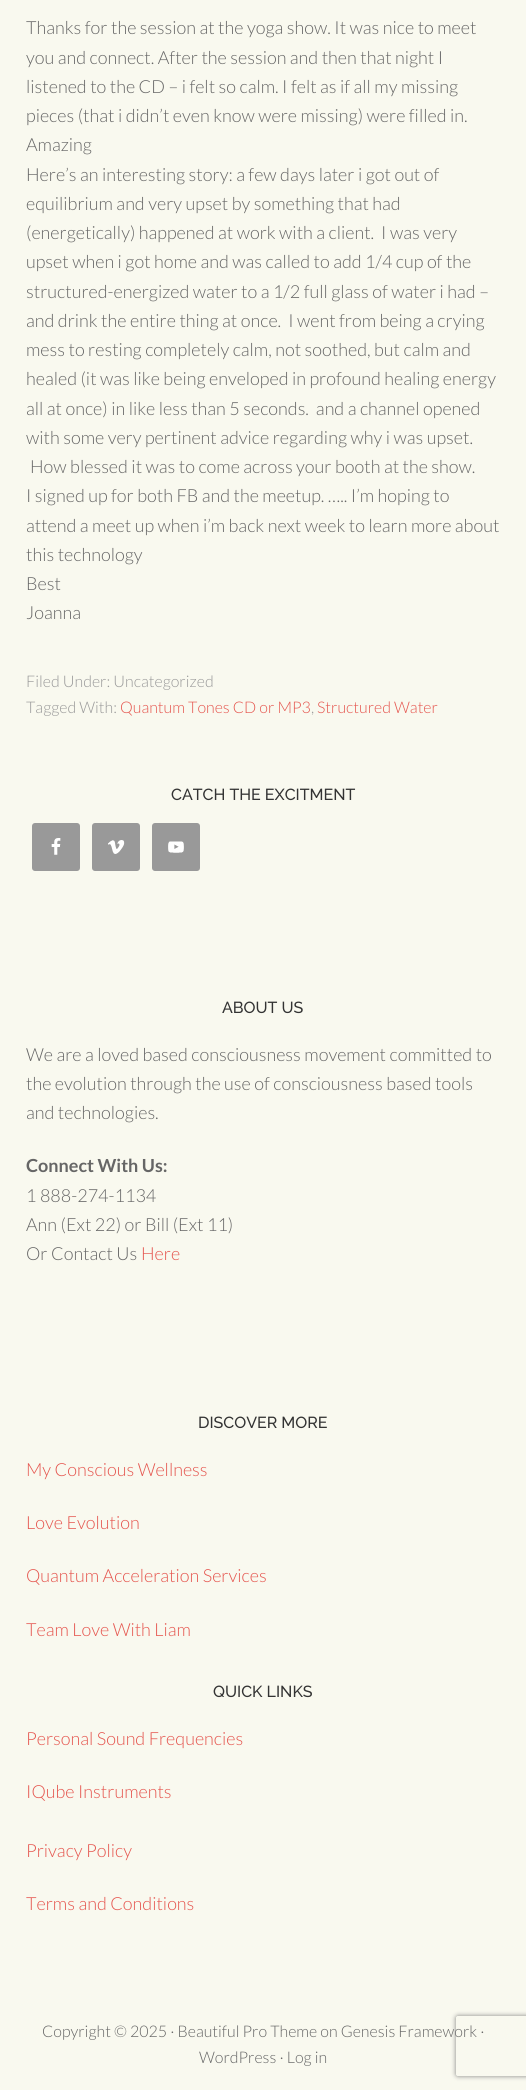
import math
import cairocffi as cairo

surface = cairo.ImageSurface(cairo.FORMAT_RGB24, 526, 2090)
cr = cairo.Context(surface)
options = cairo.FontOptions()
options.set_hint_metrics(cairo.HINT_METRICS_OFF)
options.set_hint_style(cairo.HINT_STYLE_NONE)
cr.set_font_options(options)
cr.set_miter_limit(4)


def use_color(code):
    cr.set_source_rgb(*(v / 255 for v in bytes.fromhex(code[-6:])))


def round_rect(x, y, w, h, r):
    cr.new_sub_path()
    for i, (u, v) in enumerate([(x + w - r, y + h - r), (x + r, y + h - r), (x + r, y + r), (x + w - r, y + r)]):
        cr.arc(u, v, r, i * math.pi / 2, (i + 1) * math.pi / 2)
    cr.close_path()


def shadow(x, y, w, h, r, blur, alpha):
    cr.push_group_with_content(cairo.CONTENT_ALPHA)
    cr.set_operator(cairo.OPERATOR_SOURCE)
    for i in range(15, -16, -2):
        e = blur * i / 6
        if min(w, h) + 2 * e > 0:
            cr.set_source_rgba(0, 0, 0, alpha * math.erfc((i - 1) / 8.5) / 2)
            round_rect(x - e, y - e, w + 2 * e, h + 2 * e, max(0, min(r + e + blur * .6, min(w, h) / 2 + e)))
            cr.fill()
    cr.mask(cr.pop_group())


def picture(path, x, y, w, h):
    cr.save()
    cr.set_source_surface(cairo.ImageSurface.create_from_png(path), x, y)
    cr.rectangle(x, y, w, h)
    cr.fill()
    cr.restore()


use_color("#f9f9ef")
cr.paint()
cr.select_font_face("Lato Light")
cr.set_font_size(18)
use_color("#666666")
cr.move_to(26, 34)
cr.show_text("Thanks for the session at the yoga show. It was nice to meet")
cr.move_to(26, 64)
cr.show_text("you and connect. After the session and then that night I")
cr.move_to(26, 93)
cr.show_text("listened to the CD – i felt so calm. I felt as if all my missing")
cr.move_to(26, 122)
cr.show_text("pieces (that i didn’t even know were missing) were filled in.")
cr.move_to(26, 151)
cr.show_text("Amazing")
cr.move_to(26, 181)
cr.show_text("Here’s an interesting story: a few days later i got out of")
cr.move_to(26, 210)
cr.show_text("equilibrium and very upset by something that had")
cr.move_to(26, 239)
cr.show_text("(energetically) happened at work with a client.  I was very")
cr.move_to(26, 268)
cr.show_text("upset when i got home and was called to add 1/4 cup of the")
cr.move_to(26, 298)
cr.show_text("structured-energized water to a 1/2 full glass of water i had –")
cr.move_to(26, 327)
cr.show_text("and drink the entire thing at once.  I went from being a crying")
cr.move_to(26, 356)
cr.show_text("mess to resting completely calm, not soothed, but calm and")
cr.move_to(26, 385)
cr.show_text("healed (it was like being enveloped in profound healing energy")
cr.move_to(26, 415)
cr.show_text("all at once) in like less than 5 seconds.  and a channel opened")
cr.move_to(26, 444)
cr.show_text("with some very pertinent advice regarding why i was upset.")
cr.move_to(30, 473)
cr.show_text("How blessed it was to come across your booth at the show.")
cr.move_to(26, 502)
cr.show_text("I signed up for both FB and the meetup. ….. I’m hoping to")
cr.move_to(26, 532)
cr.show_text("attend a meet up when i’m back next week to learn more about")
cr.move_to(26, 561)
cr.show_text("this technology")
cr.move_to(26, 590)
cr.show_text("Best")
cr.move_to(26, 619)
cr.show_text("Joanna")
cr.set_font_size(16)
use_color("#999999")
cr.move_to(26, 687)
cr.show_text("Filed Under: Uncategorized")
cr.move_to(26, 713)
cr.show_text("Tagged With:")
use_color("#e5554e")
cr.move_to(120, 713)
cr.show_text("Quantum Tones CD or MP3")
use_color("#999999")
cr.move_to(311, 713)
cr.show_text(",")
use_color("#e5554e")
cr.move_to(317, 713)
cr.show_text("Structured Water")
cr.select_font_face("Raleway Medium")
use_color("#333333")
cr.move_to(171, 800)
cr.show_text("CATCH THE EXCITMENT")
use_color("#999999")
round_rect(32, 823, 48, 48, 3)
cr.fill()
picture("img1.png", 51, 838, 10, 17)
round_rect(92, 823, 48, 48, 3)
cr.fill()
picture("img2.png", 108, 840, 17, 14)
round_rect(152, 823, 48, 48, 3)
cr.fill()
picture("img3.png", 168, 841, 16, 12)
use_color("#333333")
cr.move_to(222, 1013)
cr.show_text("ABOUT US")
cr.select_font_face("Lato Light")
cr.set_font_size(18)
use_color("#666666")
cr.move_to(26, 1061)
cr.show_text("We are a loved based consciousness movement committed to")
cr.move_to(26, 1090)
cr.show_text("the evolution through the use of consciousness based tools")
cr.move_to(26, 1119)
cr.show_text("and technologies.")
cr.select_font_face("Lato", cairo.FONT_SLANT_NORMAL, cairo.FONT_WEIGHT_BOLD)
cr.move_to(26, 1172)
cr.show_text("Connect With Us:")
cr.select_font_face("Lato Light")
cr.move_to(26, 1202)
cr.show_text("1 888-274-1134")
cr.move_to(26, 1231)
cr.show_text("Ann (Ext 22) or Bill (Ext 11)")
cr.move_to(26, 1260)
cr.show_text("Or Contact Us")
use_color("#e5554e")
cr.move_to(141, 1260)
cr.show_text("Here")
cr.select_font_face("Raleway Medium")
cr.set_font_size(16)
use_color("#333333")
cr.move_to(198, 1428)
cr.show_text("DISCOVER MORE")
cr.select_font_face("Lato Light")
cr.set_font_size(18)
use_color("#e5554e")
cr.move_to(26, 1476)
cr.show_text("My Conscious Wellness")
cr.move_to(26, 1529)
cr.show_text("Love Evolution")
cr.move_to(26, 1582)
cr.show_text("Quantum Acceleration Services")
cr.move_to(26, 1636)
cr.show_text("Team Love With Liam")
cr.select_font_face("Raleway Medium")
cr.set_font_size(16)
use_color("#333333")
cr.move_to(213, 1697)
cr.show_text("QUICK LINKS")
cr.select_font_face("Lato Light")
cr.set_font_size(18)
use_color("#e5554e")
cr.move_to(26, 1745)
cr.show_text("Personal Sound Frequencies")
cr.move_to(26, 1798)
cr.show_text("IQube Instruments")
cr.move_to(26, 1857)
cr.show_text("Privacy Policy")
cr.move_to(26, 1910)
cr.show_text("Terms and Conditions")
cr.set_font_size(16)
use_color("#666666")
cr.move_to(42, 2037)
cr.show_text("Copyright © 2025 · Beautiful Pro Theme on Genesis Framework ·")
cr.move_to(199, 2063)
cr.show_text("WordPress · Log in")
cr.save()
cr.set_fill_rule(cairo.FILL_RULE_EVEN_ODD)
cr.new_path()
cr.move_to(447, 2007)
cr.line_to(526, 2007)
cr.line_to(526, 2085)
cr.line_to(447, 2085)
cr.close_path()
cr.move_to(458, 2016)
cr.line_to(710, 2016)
cr.curve_to(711, 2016, 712, 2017, 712, 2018)
cr.line_to(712, 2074)
cr.curve_to(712, 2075, 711, 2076, 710, 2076)
cr.line_to(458, 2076)
cr.curve_to(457, 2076, 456, 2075, 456, 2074)
cr.line_to(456, 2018)
cr.curve_to(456, 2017, 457, 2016, 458, 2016)
cr.close_path()
cr.clip()
use_color("#808080")
shadow(456, 2016, 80, 60, 2, 2.5, 1)
cr.restore()
surface.write_to_png("result.png")
